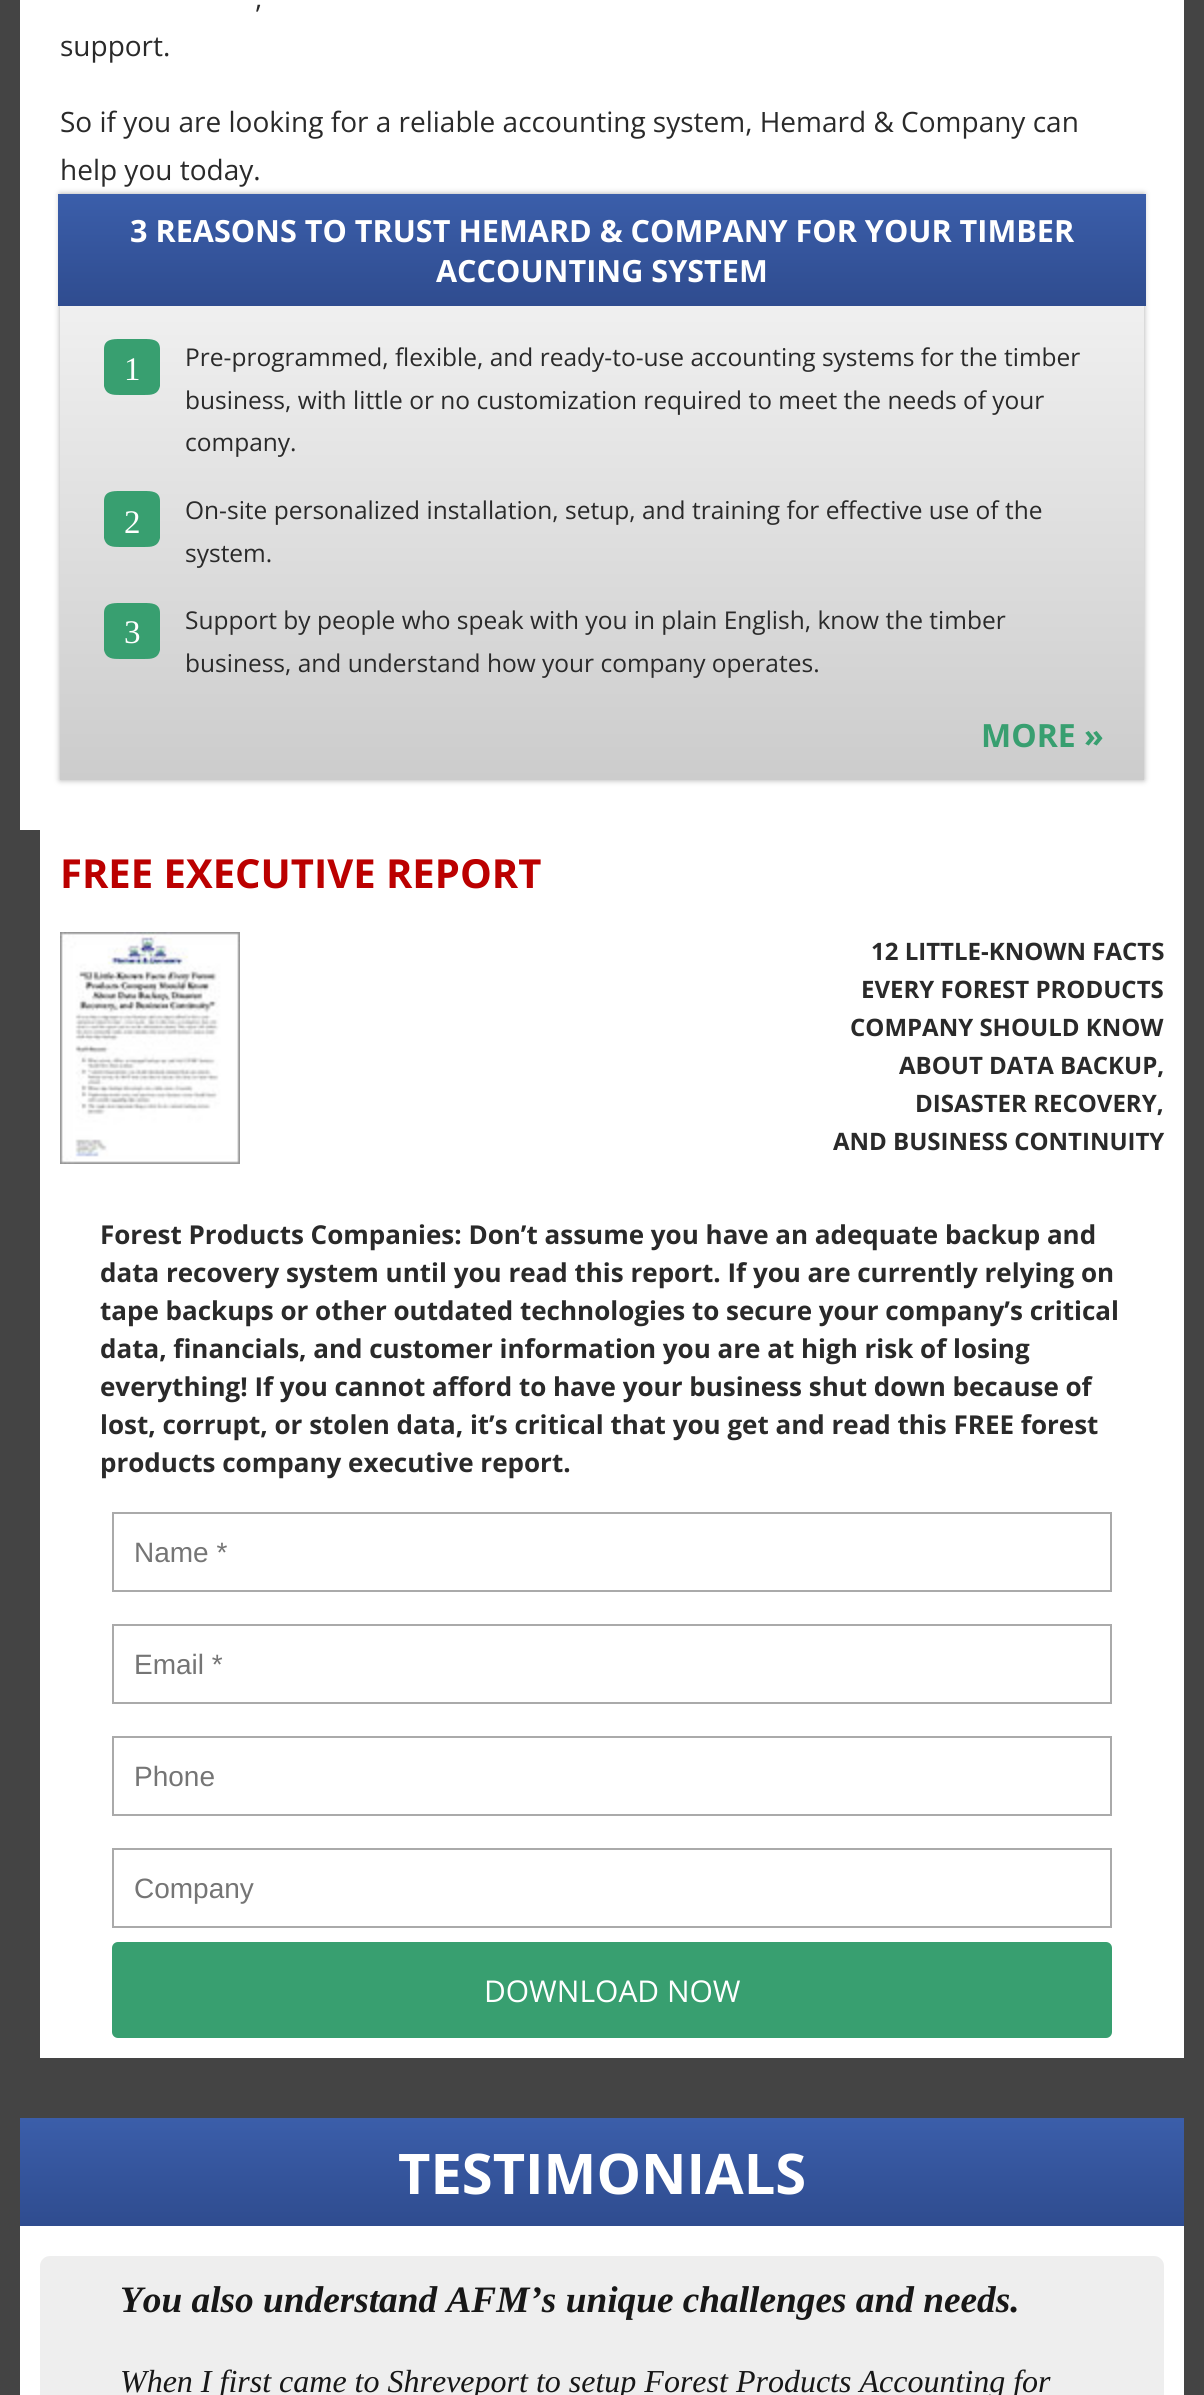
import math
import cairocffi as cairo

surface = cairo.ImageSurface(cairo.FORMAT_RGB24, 1204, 2395)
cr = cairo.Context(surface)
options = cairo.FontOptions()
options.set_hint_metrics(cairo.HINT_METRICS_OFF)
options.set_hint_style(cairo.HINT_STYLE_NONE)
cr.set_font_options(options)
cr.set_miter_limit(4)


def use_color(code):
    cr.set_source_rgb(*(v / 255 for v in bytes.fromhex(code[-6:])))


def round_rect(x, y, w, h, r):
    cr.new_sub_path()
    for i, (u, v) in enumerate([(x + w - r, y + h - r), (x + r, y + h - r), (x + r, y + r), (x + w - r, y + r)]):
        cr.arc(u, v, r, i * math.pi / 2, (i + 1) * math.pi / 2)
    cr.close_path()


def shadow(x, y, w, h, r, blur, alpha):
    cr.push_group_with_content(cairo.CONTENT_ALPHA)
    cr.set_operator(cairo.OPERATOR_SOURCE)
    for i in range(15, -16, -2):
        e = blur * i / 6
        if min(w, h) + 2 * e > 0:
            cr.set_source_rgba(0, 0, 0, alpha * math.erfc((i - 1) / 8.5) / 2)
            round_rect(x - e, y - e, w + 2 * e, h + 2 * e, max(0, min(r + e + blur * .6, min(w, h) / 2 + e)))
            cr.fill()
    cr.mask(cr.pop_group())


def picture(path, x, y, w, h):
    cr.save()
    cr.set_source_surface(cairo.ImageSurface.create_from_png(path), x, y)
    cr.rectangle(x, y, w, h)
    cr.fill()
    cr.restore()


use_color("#444444")
cr.paint()
use_color("#ffffff")
cr.rectangle(20, 0, 1164, 830)
cr.fill()
cr.select_font_face("Open Sans")
cr.set_font_size(28)
use_color("#2a2a2a")
cr.move_to(255, 8)
cr.show_text(",")
cr.move_to(60, 56)
cr.show_text("support.")
cr.move_to(60, 132)
cr.show_text("So if you are looking for a reliable accounting system, Hemard & Company can")
cr.move_to(60, 180)
cr.show_text("help you today.")
use_color("#aaaaaa")
shadow(60, 194, 1084, 586, 0, 3, 1)
gradient = cairo.LinearGradient(602, 194, 602, 780)
gradient.add_color_stop_rgba(0, 0.973, 0.973, 0.973, 1)
gradient.add_color_stop_rgba(1, 0.8, 0.8, 0.8, 1)
cr.set_source(gradient)
cr.rectangle(60, 306, 1084, 474)
cr.fill()
gradient = cairo.LinearGradient(602, 194, 602, 306)
gradient.add_color_stop_rgba(0, 0.231, 0.369, 0.667, 1)
gradient.add_color_stop_rgba(1, 0.184, 0.298, 0.561, 1)
cr.set_source(gradient)
cr.rectangle(58, 194, 1088, 112)
cr.fill()
cr.select_font_face("Open Sans", cairo.FONT_SLANT_NORMAL, cairo.FONT_WEIGHT_BOLD)
cr.set_font_size(30.6)
use_color("#ffffff")
cr.move_to(130, 242)
cr.show_text("3 REASONS TO TRUST HEMARD & COMPANY FOR YOUR TIMBER")
cr.move_to(436, 282)
cr.show_text("ACCOUNTING SYSTEM")
use_color("#389f70")
cr.new_path()
cr.move_to(160, 349)
cr.line_to(160, 386)
cr.curve_to(158, 395, 151, 395, 144, 395)
cr.line_to(120, 395)
cr.curve_to(113, 395, 106, 395, 104, 386)
cr.line_to(104, 349)
cr.curve_to(104, 339, 113, 339, 120, 339)
cr.line_to(144, 339)
cr.curve_to(151, 339, 160, 339, 160, 349)
cr.close_path()
cr.fill()
cr.select_font_face("Liberation Serif")
cr.set_font_size(33)
use_color("#ffffff")
cr.move_to(124, 380)
cr.show_text("1")
cr.select_font_face("Open Sans")
cr.set_font_size(24.5)
use_color("#2a2a2a")
cr.move_to(185, 366)
cr.show_text("Pre-programmed, flexible, and ready-to-use accounting systems for the timber")
cr.move_to(185, 409)
cr.show_text("business, with little or no customization required to meet the needs of your")
cr.move_to(185, 451)
cr.show_text("company.")
use_color("#389f70")
cr.new_path()
cr.move_to(160, 501)
cr.line_to(160, 538)
cr.curve_to(158, 547, 151, 547, 144, 547)
cr.line_to(120, 547)
cr.curve_to(113, 547, 106, 547, 104, 538)
cr.line_to(104, 501)
cr.curve_to(104, 491, 113, 491, 120, 491)
cr.line_to(144, 491)
cr.curve_to(151, 491, 160, 491, 160, 501)
cr.close_path()
cr.fill()
cr.select_font_face("Liberation Serif")
cr.set_font_size(33)
use_color("#ffffff")
cr.move_to(124, 533)
cr.show_text("2")
cr.select_font_face("Open Sans")
cr.set_font_size(24.5)
use_color("#2a2a2a")
cr.move_to(185, 519)
cr.show_text("On-site personalized installation, setup, and training for effective use of the")
cr.move_to(185, 562)
cr.show_text("system.")
use_color("#389f70")
cr.new_path()
cr.move_to(160, 613)
cr.line_to(160, 650)
cr.curve_to(158, 659, 151, 659, 144, 659)
cr.line_to(120, 659)
cr.curve_to(113, 659, 106, 659, 104, 650)
cr.line_to(104, 613)
cr.curve_to(104, 603, 113, 603, 120, 603)
cr.line_to(144, 603)
cr.curve_to(151, 603, 160, 603, 160, 613)
cr.close_path()
cr.fill()
cr.select_font_face("Liberation Serif")
cr.set_font_size(33)
use_color("#ffffff")
cr.move_to(124, 643)
cr.show_text("3")
cr.select_font_face("Open Sans")
cr.set_font_size(24.5)
use_color("#2a2a2a")
cr.move_to(185, 629)
cr.show_text("Support by people who speak with you in plain English, know the timber")
cr.move_to(185, 672)
cr.show_text("business, and understand how your company operates.")
cr.select_font_face("Open Sans", cairo.FONT_SLANT_NORMAL, cairo.FONT_WEIGHT_BOLD)
cr.set_font_size(32)
use_color("#389f70")
cr.move_to(981, 747)
cr.show_text("MORE »")
use_color("#ffffff")
cr.rectangle(40, 830, 1144, 1228)
cr.fill()
cr.set_font_size(40)
use_color("#bb0000")
cr.move_to(60, 888)
cr.show_text("FREE EXECUTIVE REPORT")
picture("img1.png", 60, 932, 180, 232)
cr.set_font_size(24)
use_color("#2a2a2a")
cr.move_to(871, 960)
cr.show_text("12 LITTLE-KNOWN FACTS")
cr.move_to(861, 998)
cr.show_text("EVERY FOREST PRODUCTS")
cr.move_to(850, 1036)
cr.show_text("COMPANY SHOULD KNOW")
cr.move_to(899, 1074)
cr.show_text("ABOUT DATA BACKUP,")
cr.move_to(915, 1112)
cr.show_text("DISASTER RECOVERY,")
cr.move_to(833, 1150)
cr.show_text("AND BUSINESS CONTINUITY")
cr.set_font_size(26)
cr.move_to(100, 1244)
cr.show_text("Forest Products Companies: Don’t assume you have an adequate backup and")
cr.move_to(100, 1282)
cr.show_text("data recovery system until you read this report. If you are currently relying on")
cr.move_to(100, 1320)
cr.show_text("tape backups or other outdated technologies to secure your company’s critical")
cr.move_to(100, 1358)
cr.show_text("data, financials, and customer information you are at high risk of losing")
cr.move_to(100, 1396)
cr.show_text("everything! If you cannot afford to have your business shut down because of")
cr.move_to(100, 1434)
cr.show_text("lost, corrupt, or stolen data, it’s critical that you get and read this FREE forest")
cr.move_to(100, 1472)
cr.show_text("products company executive report.")
cr.rectangle(113, 1513, 998, 78)
use_color("#aaaaaa")
cr.stroke()
cr.select_font_face("Liberation Sans")
cr.set_font_size(28)
use_color("#757575")
cr.move_to(134, 1562)
cr.show_text("Name *")
cr.rectangle(113, 1625, 998, 78)
use_color("#aaaaaa")
cr.stroke()
use_color("#757575")
cr.move_to(134, 1674)
cr.show_text("Email *")
cr.rectangle(113, 1737, 998, 78)
use_color("#aaaaaa")
cr.stroke()
use_color("#757575")
cr.move_to(134, 1786)
cr.show_text("Phone")
cr.rectangle(113, 1849, 998, 78)
use_color("#aaaaaa")
cr.stroke()
use_color("#757575")
cr.move_to(134, 1898)
cr.show_text("Company")
use_color("#389f70")
round_rect(113, 1943, 998, 94, 5)
cr.fill_preserve()
cr.stroke()
cr.select_font_face("Open Sans")
cr.set_font_size(30)
use_color("#ffffff")
cr.move_to(484, 2002)
cr.show_text("DOWNLOAD NOW")
cr.rectangle(20, 2226, 1164, 169)
cr.fill()
gradient = cairo.LinearGradient(602, 2118, 602, 2226)
gradient.add_color_stop_rgba(0, 0.231, 0.369, 0.667, 1)
gradient.add_color_stop_rgba(1, 0.184, 0.298, 0.561, 1)
cr.set_source(gradient)
cr.rectangle(20, 2118, 1164, 108)
cr.fill()
cr.select_font_face("Open Sans", cairo.FONT_SLANT_NORMAL, cairo.FONT_WEIGHT_BOLD)
cr.set_font_size(56)
use_color("#ffffff")
cr.move_to(398, 2194)
cr.show_text("TESTIMONIALS")
use_color("#eeeeee")
round_rect(40, 2256, 1124, 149, 10)
cr.fill()
cr.select_font_face("Liberation Serif", cairo.FONT_SLANT_ITALIC, cairo.FONT_WEIGHT_BOLD)
cr.set_font_size(37.3)
use_color("#171717")
cr.move_to(120, 2312)
cr.show_text("You also understand AFM’s unique challenges and needs.")
cr.select_font_face("Liberation Serif", cairo.FONT_SLANT_ITALIC)
cr.set_font_size(32)
cr.move_to(120, 2392)
cr.show_text("When I first came to Shreveport to setup Forest Products Accounting for")
surface.write_to_png("result.png")
